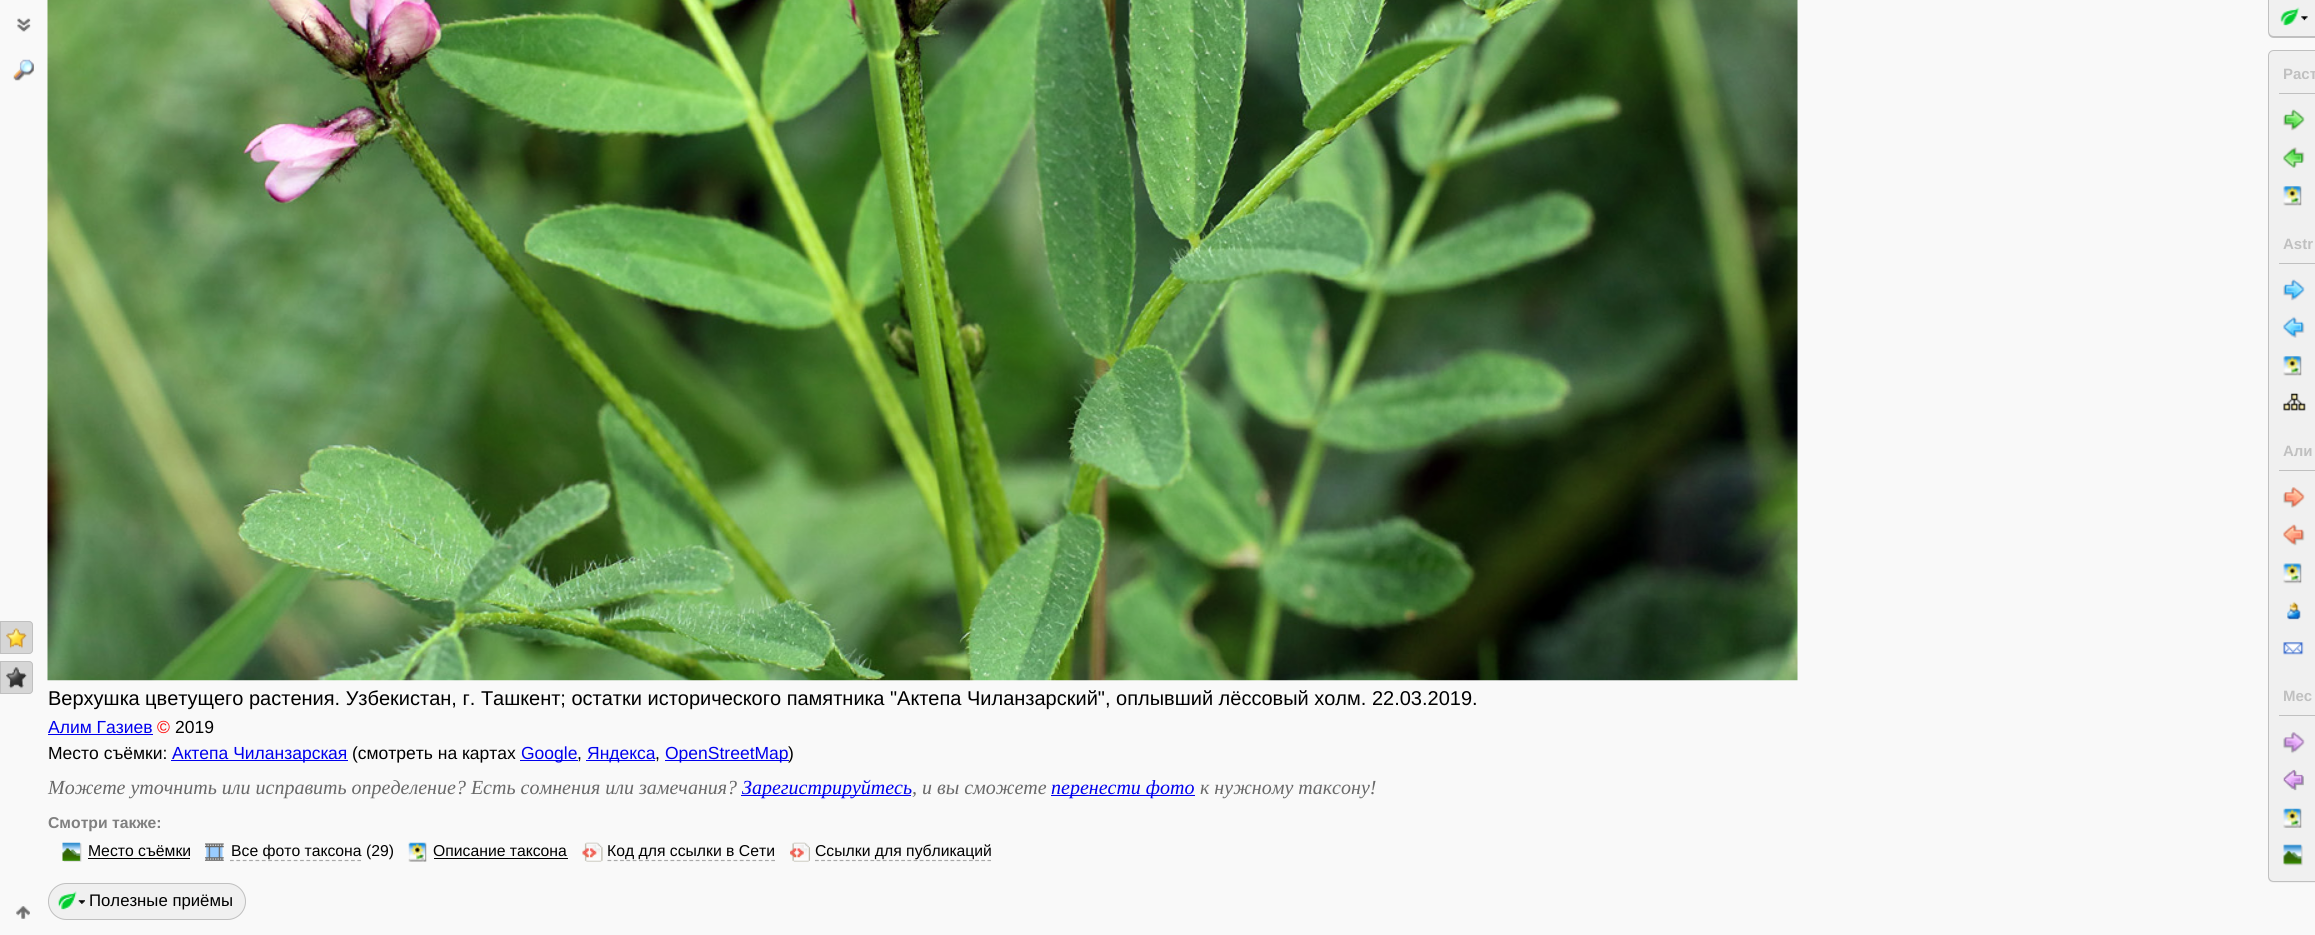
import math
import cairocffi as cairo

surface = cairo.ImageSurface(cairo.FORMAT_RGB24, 2315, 935)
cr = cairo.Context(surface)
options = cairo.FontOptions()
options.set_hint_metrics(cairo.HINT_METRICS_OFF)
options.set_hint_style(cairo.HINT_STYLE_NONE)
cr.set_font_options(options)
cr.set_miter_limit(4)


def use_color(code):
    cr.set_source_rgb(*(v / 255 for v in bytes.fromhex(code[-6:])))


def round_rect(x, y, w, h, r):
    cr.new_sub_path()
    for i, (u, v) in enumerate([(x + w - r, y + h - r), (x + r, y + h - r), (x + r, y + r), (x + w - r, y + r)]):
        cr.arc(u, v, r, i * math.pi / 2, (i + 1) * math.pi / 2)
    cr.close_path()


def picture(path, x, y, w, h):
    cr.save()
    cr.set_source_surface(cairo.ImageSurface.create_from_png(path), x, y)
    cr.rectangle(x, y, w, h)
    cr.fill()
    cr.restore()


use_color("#f9f9f9")
cr.paint()
picture("img1.png", 17, 18, 14, 14)
picture("img2.png", 13, 59, 21, 22)
use_color("#d6d6d6")
cr.new_path()
cr.move_to(0, 621)
cr.line_to(29, 621)
cr.curve_to(31, 621, 33, 623, 33, 625)
cr.line_to(33, 650)
cr.curve_to(33, 652, 31, 654, 29, 654)
cr.line_to(0, 654)
cr.close_path()
cr.fill()
picture("img3.png", 6, 628, 21, 21)
cr.new_path()
cr.move_to(0.5, 621.5)
cr.line_to(29, 621.5)
cr.curve_to(31, 621.5, 32.5, 623, 32.5, 625)
cr.line_to(32.5, 650)
cr.curve_to(32.5, 652, 31, 653.5, 29, 653.5)
cr.line_to(0.5, 653.5)
cr.close_path()
use_color("#c0c0c0")
cr.set_line_width(1)
cr.stroke()
use_color("#d6d6d6")
cr.new_path()
cr.move_to(0, 661)
cr.line_to(29, 661)
cr.curve_to(31, 661, 33, 663, 33, 665)
cr.line_to(33, 690)
cr.curve_to(33, 692, 31, 694, 29, 694)
cr.line_to(0, 694)
cr.close_path()
cr.fill()
picture("img4.png", 6, 667, 21, 22)
cr.new_path()
cr.move_to(0.5, 661.5)
cr.line_to(29, 661.5)
cr.curve_to(31, 661.5, 32.5, 663, 32.5, 665)
cr.line_to(32.5, 690)
cr.curve_to(32.5, 692, 31, 693.5, 29, 693.5)
cr.line_to(0.5, 693.5)
cr.close_path()
use_color("#c0c0c0")
cr.stroke()
use_color("#f0f0f0")
cr.new_path()
cr.move_to(2268, 0)
cr.line_to(2315, 0)
cr.line_to(2315, 38)
cr.line_to(2274, 38)
cr.curve_to(2270.5, 38, 2268, 35.5, 2268, 32)
cr.close_path()
cr.fill()
picture("img5.png", 2280, 7, 20, 19)
use_color("#c0c0c0")
cr.set_fill_rule(cairo.FILL_RULE_EVEN_ODD)
cr.new_path()
cr.move_to(2268, 0)
cr.line_to(2315, 0)
cr.line_to(2315, 38)
cr.line_to(2274, 38)
cr.curve_to(2270, 38, 2268, 35, 2268, 31)
cr.close_path()
cr.move_to(2269, 0)
cr.line_to(2315, 0)
cr.line_to(2315, 36)
cr.line_to(2274, 36)
cr.curve_to(2271, 36, 2269, 34, 2269, 31)
cr.close_path()
cr.fill()
picture("img6.png", 2301, 16, 7, 5)
use_color("#f0f0f0")
cr.new_path()
cr.move_to(2274, 50)
cr.line_to(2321, 50)
cr.line_to(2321, 883)
cr.line_to(2274, 883)
cr.curve_to(2270.5, 883, 2268, 880.5, 2268, 877)
cr.line_to(2268, 56)
cr.curve_to(2268, 52.5, 2270.5, 50, 2274, 50)
cr.close_path()
cr.fill()
use_color("#c0c0c0")
cr.new_path()
cr.move_to(2274, 50)
cr.line_to(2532, 50)
cr.line_to(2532, 882)
cr.line_to(2274, 882)
cr.curve_to(2270, 882, 2268, 880, 2268, 876)
cr.line_to(2268, 56)
cr.curve_to(2268, 53, 2270, 50, 2274, 50)
cr.close_path()
cr.move_to(2274, 51)
cr.line_to(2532, 51)
cr.line_to(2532, 881)
cr.line_to(2274, 881)
cr.curve_to(2271, 881, 2269, 879, 2269, 876)
cr.line_to(2269, 56)
cr.curve_to(2269, 53, 2271, 51, 2274, 51)
cr.close_path()
cr.fill()
cr.rectangle(2279, 93, 36, 1)
cr.fill()
cr.select_font_face("Liberation Sans", cairo.FONT_SLANT_NORMAL, cairo.FONT_WEIGHT_BOLD)
cr.set_font_size(15)
cr.move_to(2283, 79)
cr.show_text("Раст")
picture("img7.png", 2283, 109, 22, 22)
picture("img8.png", 2283, 147, 22, 21)
picture("img9.png", 2283, 186, 19, 20)
cr.rectangle(2279, 263, 36, 1)
cr.fill()
cr.move_to(2283, 249)
cr.show_text("Astr")
picture("img10.png", 2283, 279, 22, 22)
picture("img11.png", 2283, 316, 22, 22)
picture("img9.png", 2283, 356, 19, 20)
picture("img12.png", 2283, 393, 23, 18)
cr.rectangle(2279, 470, 36, 1)
cr.fill()
cr.move_to(2283, 456)
cr.show_text("Али")
picture("img13.png", 2283, 487, 22, 21)
picture("img14.png", 2283, 524, 22, 22)
picture("img15.png", 2283, 563, 19, 21)
picture("img16.png", 2287, 601, 14, 19)
picture("img17.png", 2283, 642, 21, 13)
cr.rectangle(2279, 715, 36, 1)
cr.fill()
cr.move_to(2283, 701)
cr.show_text("Мес")
picture("img18.png", 2283, 732, 22, 22)
picture("img19.png", 2283, 769, 21, 22)
picture("img20.png", 2283, 808, 19, 20)
picture("img21.png", 2283, 844, 20, 22)
picture("img22.png", 47, 0, 1751, 681)
cr.select_font_face("Liberation Sans")
cr.set_font_size(20)
use_color("#000000")
cr.move_to(48, 705)
cr.show_text("Верхушка цветущего растения. Узбекистан, г. Ташкент; остатки исторического памятника \"Актепа Чиланзарский\", оплывший лёссовый холм. 22.03.2019.")
cr.set_font_size(17.5)
use_color("#0000ee")
cr.move_to(48, 733)
cr.show_text("Алим Газиев")
cr.rectangle(48, 734, 105, 1)
cr.fill()
use_color("#ff0000")
cr.move_to(157, 733)
cr.show_text("©")
use_color("#000000")
cr.move_to(175, 733)
cr.show_text("2019")
cr.move_to(48, 759)
cr.show_text("Место съёмки:")
use_color("#0000ee")
cr.rectangle(171, 760, 177, 1)
cr.fill()
cr.move_to(172, 759)
cr.show_text("Актепа Чиланзарская")
use_color("#000000")
cr.move_to(352, 759)
cr.show_text("(смотреть на картах")
use_color("#0000ee")
cr.rectangle(520, 760, 58, 1)
cr.fill()
cr.move_to(521, 759)
cr.show_text("Google")
use_color("#000000")
cr.move_to(577, 759)
cr.show_text(",")
use_color("#0000ee")
cr.rectangle(586, 760, 69, 1)
cr.fill()
cr.move_to(587, 759)
cr.show_text("Яндекса")
use_color("#000000")
cr.move_to(655, 759)
cr.show_text(",")
use_color("#0000ee")
cr.rectangle(665, 760, 124, 1)
cr.fill()
cr.move_to(665, 759)
cr.show_text("OpenStreetMap")
use_color("#000000")
cr.move_to(788, 759)
cr.show_text(")")
cr.select_font_face("Liberation Serif", cairo.FONT_SLANT_ITALIC)
cr.set_font_size(20)
use_color("#696969")
cr.move_to(48, 794)
cr.show_text("Можете уточнить или исправить определение? Есть сомнения или замечания?")
use_color("#0000ee")
cr.rectangle(741, 795, 170, 1)
cr.fill()
cr.move_to(742, 794)
cr.show_text("Зарегистрируйтесь")
use_color("#696969")
cr.move_to(912, 794)
cr.show_text(", и вы сможете")
use_color("#0000ee")
cr.rectangle(1051, 795, 144, 1)
cr.fill()
cr.move_to(1051, 794)
cr.show_text("перенести фото")
use_color("#696969")
cr.move_to(1200, 794)
cr.show_text("к нужному таксону!")
cr.select_font_face("Liberation Sans", cairo.FONT_SLANT_NORMAL, cairo.FONT_WEIGHT_BOLD)
cr.set_font_size(15.75)
use_color("#808080")
cr.move_to(48, 828)
cr.show_text("Смотри также:")
picture("img23.png", 62, 842, 20, 20)
cr.select_font_face("Liberation Sans")
use_color("#000000")
cr.move_to(88, 856)
cr.show_text("Место съёмки")
cr.rectangle(88, 858, 102, 1)
cr.fill()
picture("img24.png", 205, 843, 19, 18)
cr.new_path()
cr.move_to(230, 860.5)
cr.line_to(361, 860.5)
use_color("#a9a9a9")
cr.set_line_width(1.2)
cr.set_dash([3.75, 2.62])
cr.stroke()
use_color("#000000")
cr.move_to(231, 856)
cr.show_text("Все фото таксона (29)")
picture("img25.png", 408, 842, 19, 20)
cr.move_to(433, 856)
cr.show_text("Описание таксона")
cr.rectangle(434, 858, 134, 1)
cr.fill()
picture("img26.png", 582, 842, 21, 20)
cr.new_path()
cr.move_to(607.5, 860.5)
cr.line_to(775, 860.5)
use_color("#a9a9a9")
cr.set_dash([3.75, 2.55])
cr.stroke()
use_color("#000000")
cr.move_to(607, 856)
cr.show_text("Код для ссылки в Сети")
picture("img27.png", 790, 842, 20, 20)
cr.new_path()
cr.move_to(815, 860.5)
cr.line_to(991, 860.5)
use_color("#a9a9a9")
cr.set_dash([3.75, 2.41])
cr.stroke()
use_color("#000000")
cr.move_to(815, 856)
cr.show_text("Ссылки для публикаций")
use_color("#f0f0f0")
round_rect(48, 883, 198, 37, 18.5)
cr.fill()
picture("img28.png", 78, 900, 7, 4)
round_rect(48.5, 883.5, 197, 36, 18)
use_color("#c0c0c0")
cr.set_line_width(1)
cr.set_dash([])
cr.stroke()
picture("img29.png", 58, 891, 19, 19)
cr.set_font_size(16.75)
use_color("#000000")
cr.move_to(89, 906)
cr.show_text("Полезные приёмы")
picture("img30.png", 16, 906, 14, 13)
surface.write_to_png("result.png")
